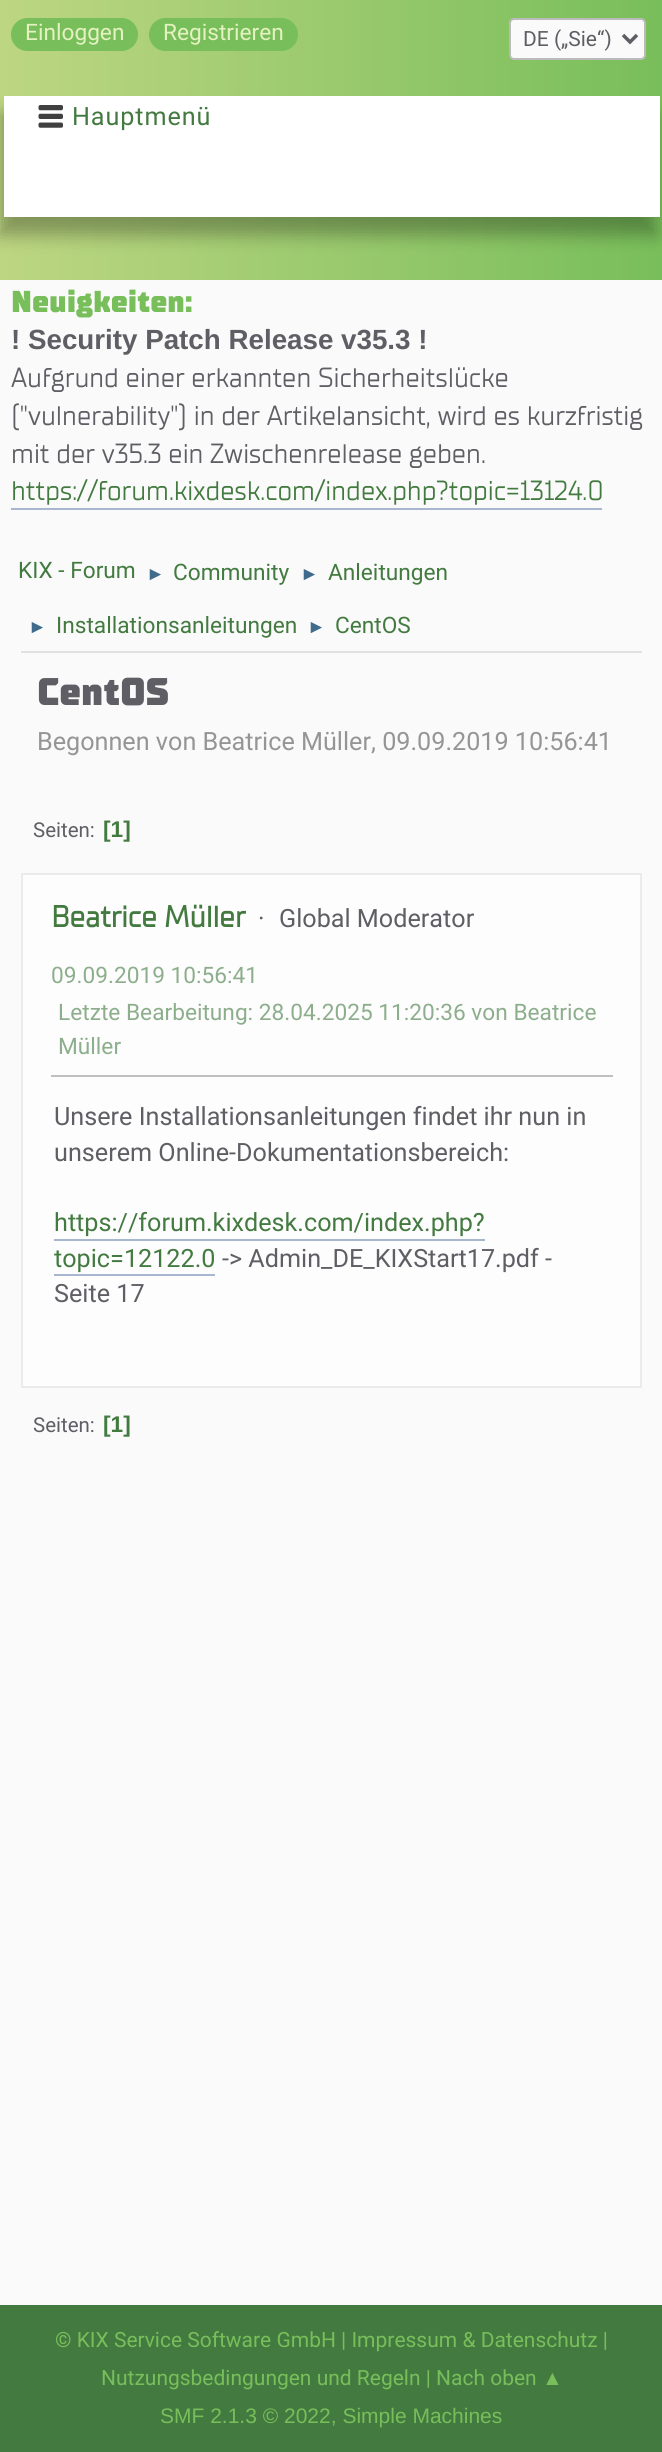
import math
import cairocffi as cairo

surface = cairo.ImageSurface(cairo.FORMAT_RGB24, 662, 2452)
cr = cairo.Context(surface)
options = cairo.FontOptions()
options.set_hint_metrics(cairo.HINT_METRICS_OFF)
options.set_hint_style(cairo.HINT_STYLE_NONE)
cr.set_font_options(options)
cr.set_miter_limit(4)


def use_color(code):
    cr.set_source_rgb(*(v / 255 for v in bytes.fromhex(code[-6:])))


def spaced_text(x, y, s, letter, word):
    cr.move_to(x, y)
    for ch in s:
        cr.show_text(ch)
        cr.rel_move_to(letter + word * (ch == ' '), 0)


def round_rect(x, y, w, h, r):
    cr.new_sub_path()
    for i, (u, v) in enumerate([(x + w - r, y + h - r), (x + r, y + h - r), (x + r, y + r), (x + w - r, y + r)]):
        cr.arc(u, v, r, i * math.pi / 2, (i + 1) * math.pi / 2)
    cr.close_path()


def shadow(x, y, w, h, r, blur, alpha):
    cr.push_group_with_content(cairo.CONTENT_ALPHA)
    cr.set_operator(cairo.OPERATOR_SOURCE)
    for i in range(15, -16, -2):
        e = blur * i / 6
        if min(w, h) + 2 * e > 0:
            cr.set_source_rgba(0, 0, 0, alpha * math.erfc((i - 1) / 8.5) / 2)
            round_rect(x - e, y - e, w + 2 * e, h + 2 * e, max(0, min(r + e + blur * .6, min(w, h) / 2 + e)))
            cr.fill()
    cr.mask(cr.pop_group())


def picture(path, x, y, w, h):
    cr.save()
    cr.set_source_surface(cairo.ImageSurface.create_from_png(path), x, y)
    cr.rectangle(x, y, w, h)
    cr.fill()
    cr.restore()


use_color("#fafafa")
cr.paint()
gradient = cairo.LinearGradient(0, 140, 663, 140)
gradient.add_color_stop_rgba(0, 0.741, 0.839, 0.506, 1)
gradient.add_color_stop_rgba(1, 0.471, 0.745, 0.353, 1)
cr.set_source(gradient)
cr.rectangle(0, 0, 662, 280)
cr.fill()
use_color("#78be5a")
round_rect(11, 18, 127, 33, 16.5)
cr.fill()
cr.select_font_face("Roboto")
cr.set_font_size(22.7)
use_color("#e4f2c2")
cr.move_to(25, 40)
cr.show_text("Einloggen")
use_color("#78be5a")
round_rect(149, 18, 149, 33, 16.5)
cr.fill()
use_color("#e4f2c2")
cr.move_to(163, 40)
cr.show_text("Registrieren")
use_color("#fafafa")
round_rect(510, 19, 135, 40, 4)
cr.fill_preserve()
use_color("#bbbbbb")
cr.stroke()
cr.new_path()
cr.move_to(623, 35)
cr.line_to(630, 42)
cr.line_to(637, 35)
use_color("#5e5e64")
cr.set_line_width(3.5)
cr.stroke()
cr.set_font_size(21)
cr.move_to(523, 46)
cr.show_text("DE („Sie“)")
use_color("#000000")
shadow(0, 114, 656, 121, 0, 9, 0.3)
use_color("#ffffff")
cr.rectangle(4, 96, 656, 121)
cr.fill()
picture("img1.png", 38, 105, 25, 23)
cr.set_font_size(25.2)
use_color("#437a40")
spaced_text(72, 125, "Hauptmenü", 0.9, 0)
cr.select_font_face("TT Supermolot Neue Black")
cr.set_font_size(30.25)
use_color("#78be5a")
cr.move_to(11, 312)
cr.show_text("Neuigkeiten:")
cr.select_font_face("Liberation Sans", cairo.FONT_SLANT_NORMAL, cairo.FONT_WEIGHT_BOLD)
cr.set_font_size(27.75)
use_color("#5e5e64")
cr.move_to(11, 349)
cr.show_text("! Security Patch Release v35.3 !")
cr.select_font_face("TT Supermolot Neue")
cr.move_to(11, 387)
cr.show_text("Aufgrund einer erkannten Sicherheitslücke")
cr.move_to(11, 425)
cr.show_text("(\"vulnerability\") in der Artikelansicht, wird es kurzfristig")
cr.move_to(11, 463)
cr.show_text("mit der v35.3 ein Zwischenrelease geben.")
use_color("#437a40")
cr.move_to(11, 500)
cr.show_text("https://forum.kixdesk.com/index.php?topic=13124.0")
use_color("#a8b6cf")
cr.rectangle(11, 508, 591, 2)
cr.fill()
cr.select_font_face("Roboto")
cr.set_font_size(22.7)
use_color("#437a40")
cr.move_to(18, 578)
cr.show_text("KIX - Forum")
cr.select_font_face("Liberation Sans")
cr.set_font_size(19)
use_color("#3f6b8c")
cr.move_to(146, 580)
cr.show_text("►")
cr.select_font_face("Roboto")
cr.set_font_size(22.7)
use_color("#437a40")
cr.move_to(173, 580)
cr.show_text("Community")
cr.select_font_face("Liberation Sans")
cr.set_font_size(19)
use_color("#3f6b8c")
cr.move_to(300, 580)
cr.show_text("►")
cr.select_font_face("Roboto")
cr.set_font_size(22.7)
use_color("#437a40")
cr.move_to(328, 580)
cr.show_text("Anleitungen")
cr.select_font_face("Liberation Sans")
cr.set_font_size(19)
use_color("#3f6b8c")
cr.move_to(28, 633)
cr.show_text("►")
cr.select_font_face("Roboto")
cr.set_font_size(22.7)
use_color("#437a40")
cr.move_to(56, 633)
cr.show_text("Installationsanleitungen")
cr.select_font_face("Liberation Sans")
cr.set_font_size(19)
use_color("#3f6b8c")
cr.move_to(307, 633)
cr.show_text("►")
cr.select_font_face("Roboto")
cr.set_font_size(22.7)
use_color("#437a40")
cr.move_to(335, 633)
cr.show_text("CentOS")
use_color("#e1e1e1")
cr.rectangle(21, 651, 621, 2)
cr.fill()
cr.select_font_face("TT Supermolot Neue Black")
cr.set_font_size(38.5)
use_color("#5e5e64")
cr.move_to(37, 705)
cr.show_text("CentOS")
cr.select_font_face("Roboto")
cr.set_font_size(25.2)
use_color("#959595")
cr.move_to(37, 750)
cr.show_text("Begonnen von Beatrice Müller, 09.09.2019 10:56:41")
cr.set_font_size(20.5)
use_color("#5e5e64")
cr.move_to(33, 837)
cr.show_text("Seiten:")
cr.select_font_face("Liberation Sans", cairo.FONT_SLANT_NORMAL, cairo.FONT_WEIGHT_BOLD)
cr.set_font_size(22.7)
use_color("#437a40")
cr.move_to(103, 837)
cr.show_text("[1]")
use_color("#fdfdfd")
cr.rectangle(22, 874, 619, 513)
cr.fill_preserve()
use_color("#ebebeb")
cr.set_line_width(2)
cr.stroke()
cr.select_font_face("TT Supermolot Neue", cairo.FONT_SLANT_NORMAL, cairo.FONT_WEIGHT_BOLD)
cr.set_font_size(30.25)
use_color("#437a40")
cr.move_to(51, 927)
cr.show_text("Beatrice Müller")
cr.select_font_face("Roboto")
cr.set_font_size(25.2)
use_color("#5e5e64")
cr.move_to(258, 927)
cr.show_text("·")
cr.move_to(279, 927)
cr.show_text("Global Moderator")
cr.set_font_size(22.7)
use_color("#8dae8c")
cr.move_to(51, 983)
cr.show_text("09.09.2019 10:56:41")
cr.move_to(58, 1020)
cr.show_text("Letzte Bearbeitung: 28.04.2025 11:20:36 von Beatrice")
cr.move_to(58, 1054)
cr.show_text("Müller")
use_color("#bfbfbf")
cr.rectangle(51, 1075, 562, 2)
cr.fill()
cr.set_font_size(25.2)
use_color("#5e5e64")
cr.move_to(54, 1125)
cr.show_text("Unsere Installationsanleitungen findet ihr nun in")
cr.move_to(54, 1161)
cr.show_text("unserem Online-Dokumentationsbereich:")
use_color("#437a40")
cr.move_to(54, 1231)
cr.show_text("https://forum.kixdesk.com/index.php?")
use_color("#a8b6cf")
cr.rectangle(54, 1239, 431, 2)
cr.fill()
use_color("#437a40")
cr.move_to(54, 1267)
cr.show_text("topic=12122.0")
use_color("#a8b6cf")
cr.rectangle(54, 1274, 161, 2)
cr.fill()
use_color("#5e5e64")
cr.move_to(222, 1267)
cr.show_text("-> Admin_DE_KIXStart17.pdf -")
cr.move_to(54, 1302)
cr.show_text("Seite 17")
cr.set_font_size(20.5)
cr.move_to(33, 1432)
cr.show_text("Seiten:")
cr.select_font_face("Liberation Sans", cairo.FONT_SLANT_NORMAL, cairo.FONT_WEIGHT_BOLD)
cr.set_font_size(22.7)
use_color("#437a40")
cr.move_to(103, 1432)
cr.show_text("[1]")
cr.rectangle(0, 2305, 662, 147)
cr.fill()
cr.select_font_face("Roboto")
cr.set_font_size(21)
use_color("#78be5a")
cr.move_to(55, 2347)
cr.show_text("© KIX Service Software GmbH | Impressum & Datenschutz |")
cr.move_to(101, 2385)
cr.show_text("Nutzungsbedingungen und Regeln | Nach oben")
cr.select_font_face("Liberation Sans")
cr.move_to(542, 2385)
cr.show_text("▲")
cr.move_to(160, 2423)
cr.show_text("SMF 2.1.3 © 2022, Simple Machines")
surface.write_to_png("result.png")
